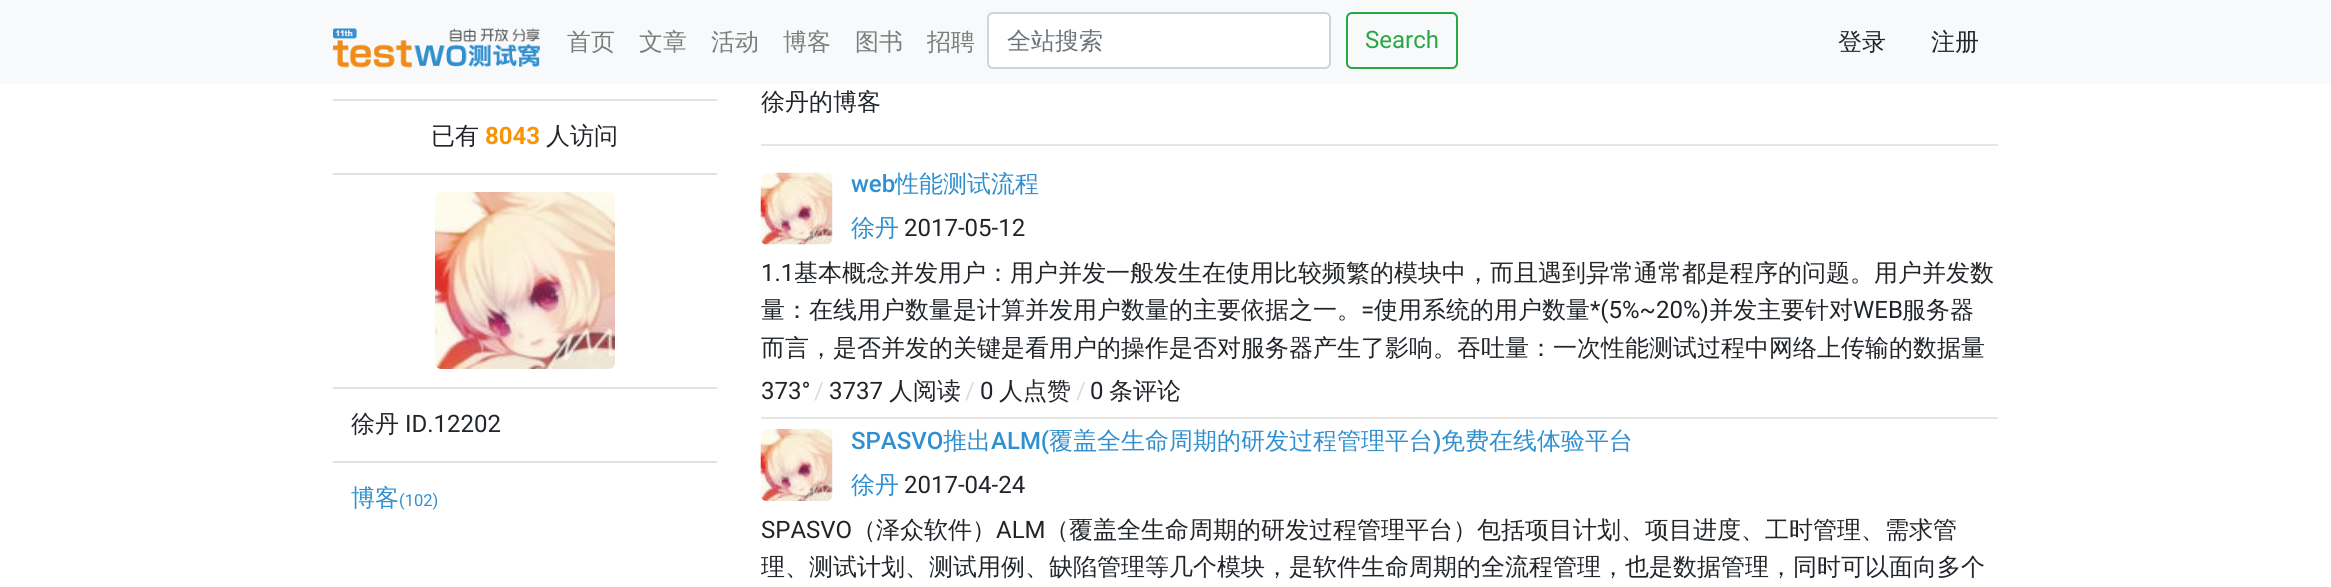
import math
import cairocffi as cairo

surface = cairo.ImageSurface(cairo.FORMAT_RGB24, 2331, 587)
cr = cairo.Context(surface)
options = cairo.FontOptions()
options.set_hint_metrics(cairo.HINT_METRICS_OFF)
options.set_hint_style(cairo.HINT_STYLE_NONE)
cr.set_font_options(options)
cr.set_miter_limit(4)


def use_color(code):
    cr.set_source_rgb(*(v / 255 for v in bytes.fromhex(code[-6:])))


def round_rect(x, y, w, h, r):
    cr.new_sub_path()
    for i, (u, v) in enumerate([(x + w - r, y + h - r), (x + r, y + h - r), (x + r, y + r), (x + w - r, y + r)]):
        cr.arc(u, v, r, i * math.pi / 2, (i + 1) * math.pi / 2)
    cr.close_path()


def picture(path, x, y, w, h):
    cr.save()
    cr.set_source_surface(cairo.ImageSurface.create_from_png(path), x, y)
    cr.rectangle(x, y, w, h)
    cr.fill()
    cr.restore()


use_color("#ffffff")
cr.paint()
use_color("#f8f9fa")
cr.rectangle(0, 0, 2331, 84)
cr.fill()
picture("img1.png", 333, 28, 207, 40)
cr.select_font_face("WenQuanYi Zen Hei Medium")
cr.set_font_size(24)
use_color("#7c7d7d")
cr.move_to(567, 50)
cr.show_text("首页")
cr.move_to(639, 50)
cr.show_text("文章")
cr.move_to(711, 50)
cr.show_text("活动")
cr.move_to(783, 50)
cr.show_text("博客")
cr.move_to(855, 50)
cr.show_text("图书")
cr.move_to(927, 50)
cr.show_text("招聘")
use_color("#ffffff")
round_rect(988, 13, 342, 55, 5)
cr.fill_preserve()
use_color("#ced4da")
cr.stroke()
use_color("#6c757d")
cr.move_to(1007, 49)
cr.show_text("全站搜索")
round_rect(1347, 13, 110, 55, 5)
use_color("#28a745")
cr.stroke()
cr.select_font_face("Roboto")
cr.move_to(1365, 48)
cr.show_text("Search")
cr.select_font_face("WenQuanYi Zen Hei Medium")
use_color("#212529")
cr.move_to(1838, 50)
cr.show_text("登录")
cr.move_to(1931, 50)
cr.show_text("注册")
use_color("#dee2e6")
cr.rectangle(333, 99, 384, 2)
cr.fill()
use_color("#212529")
cr.move_to(431, 144)
cr.show_text("已有")
cr.select_font_face("Roboto", cairo.FONT_SLANT_NORMAL, cairo.FONT_WEIGHT_BOLD)
use_color("#f89406")
cr.move_to(485, 144)
cr.show_text("8043")
cr.select_font_face("WenQuanYi Zen Hei Medium")
use_color("#212529")
cr.move_to(546, 144)
cr.show_text("人访问")
use_color("#dee2e6")
cr.rectangle(333, 173, 384, 2)
cr.fill()
picture("img2.png", 435, 192, 180, 177)
cr.rectangle(333, 387, 384, 2)
cr.fill()
use_color("#212529")
cr.move_to(351, 432)
cr.show_text("徐丹")
cr.select_font_face("Roboto")
cr.move_to(405, 432)
cr.show_text("ID.12202")
use_color("#dee2e6")
cr.rectangle(333, 461, 384, 2)
cr.fill()
cr.select_font_face("WenQuanYi Zen Hei Medium")
use_color("#308fcf")
cr.move_to(351, 506)
cr.show_text("博客")
cr.select_font_face("Roboto")
cr.set_font_size(16.5)
cr.move_to(399, 506)
cr.show_text("(102)")
cr.select_font_face("WenQuanYi Zen Hei Medium")
cr.set_font_size(24)
use_color("#212529")
cr.move_to(761, 110)
cr.show_text("徐丹的博客")
use_color("#e6e6e6")
cr.rectangle(761, 144, 1237, 2)
cr.fill()
picture("img3.png", 760, 172, 73, 73)
cr.select_font_face("Roboto Medium")
use_color("#308fcf")
cr.move_to(851, 192)
cr.show_text("web")
cr.select_font_face("WenQuanYi Zen Hei Medium")
cr.move_to(895, 192)
cr.show_text("性能测试流程")
cr.move_to(851, 236)
cr.show_text("徐丹")
cr.select_font_face("Roboto")
use_color("#212529")
cr.move_to(904, 236)
cr.show_text("2017-05-12")
cr.move_to(761, 281)
cr.show_text("1.1")
cr.select_font_face("WenQuanYi Zen Hei Medium")
cr.move_to(794, 281)
cr.show_text("基本概念并发用户：用户并发一般发生在使用比较频繁的模块中，而且遇到异常通常都是程序的问题。用户并发数")
cr.move_to(761, 318)
cr.show_text("量：在线用户数量是计算并发用户数量的主要依据之一。")
cr.select_font_face("Roboto")
cr.move_to(1361, 318)
cr.show_text("=")
cr.select_font_face("WenQuanYi Zen Hei Medium")
cr.move_to(1374, 318)
cr.show_text("使用系统的用户数量")
cr.select_font_face("Roboto")
cr.move_to(1590, 318)
cr.show_text("*(5%~20%)")
cr.select_font_face("WenQuanYi Zen Hei Medium")
cr.move_to(1709, 318)
cr.show_text("并发主要针对")
cr.select_font_face("Roboto")
cr.move_to(1853, 318)
cr.show_text("WEB")
cr.select_font_face("WenQuanYi Zen Hei Medium")
cr.move_to(1902, 318)
cr.show_text("服务器")
cr.move_to(761, 356)
cr.show_text("而言，是否并发的关键是看用户的操作是否对服务器产生了影响。吞吐量：一次性能测试过程中网络上传输的数据量")
cr.select_font_face("Roboto")
cr.move_to(761, 399)
cr.show_text("373°")
use_color("#dcdcdc")
cr.move_to(814, 399)
cr.show_text("/")
use_color("#212529")
cr.move_to(829, 399)
cr.show_text("3737")
cr.select_font_face("WenQuanYi Zen Hei Medium")
cr.move_to(889, 399)
cr.show_text("人阅读")
cr.select_font_face("Roboto")
use_color("#dcdcdc")
cr.move_to(965, 399)
cr.show_text("/")
use_color("#212529")
cr.move_to(980, 399)
cr.show_text("0")
cr.select_font_face("WenQuanYi Zen Hei Medium")
cr.move_to(999, 399)
cr.show_text("人点赞")
cr.select_font_face("Roboto")
use_color("#dcdcdc")
cr.move_to(1076, 399)
cr.show_text("/")
use_color("#212529")
cr.move_to(1090, 399)
cr.show_text("0")
cr.select_font_face("WenQuanYi Zen Hei Medium")
cr.move_to(1109, 399)
cr.show_text("条评论")
use_color("#e6e6e6")
cr.rectangle(761, 417, 1237, 2)
cr.fill()
picture("img4.png", 760, 429, 73, 72)
cr.select_font_face("Roboto Medium")
use_color("#308fcf")
cr.move_to(851, 449)
cr.show_text("SPASVO")
cr.select_font_face("WenQuanYi Zen Hei Medium")
cr.move_to(943, 449)
cr.show_text("推出")
cr.select_font_face("Roboto Medium")
cr.move_to(991, 449)
cr.show_text("ALM(")
cr.select_font_face("WenQuanYi Zen Hei Medium")
cr.move_to(1049, 449)
cr.show_text("覆盖全生命周期的研发过程管理平台")
cr.select_font_face("Roboto Medium")
cr.move_to(1433, 449)
cr.show_text(")")
cr.select_font_face("WenQuanYi Zen Hei Medium")
cr.move_to(1441, 449)
cr.show_text("免费在线体验平台")
cr.move_to(851, 493)
cr.show_text("徐丹")
cr.select_font_face("Roboto")
use_color("#212529")
cr.move_to(904, 493)
cr.show_text("2017-04-24")
cr.move_to(761, 538)
cr.show_text("SPASVO")
cr.select_font_face("WenQuanYi Zen Hei Medium")
cr.move_to(852, 538)
cr.show_text("（泽众软件）")
cr.select_font_face("Roboto")
cr.move_to(996, 538)
cr.show_text("ALM")
cr.select_font_face("WenQuanYi Zen Hei Medium")
cr.move_to(1045, 538)
cr.show_text("（覆盖全生命周期的研发过程管理平台）包括项目计划、项目进度、工时管理、需求管")
cr.save()
cr.rectangle(761, 510, 1237, 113)
cr.clip()
cr.move_to(761, 575)
cr.show_text("理、测试计划、测试用例、缺陷管理等几个模块，是软件生命周期的全流程管理，也是数据管理，同时可以面向多个")
cr.restore()
surface.write_to_png("result.png")
